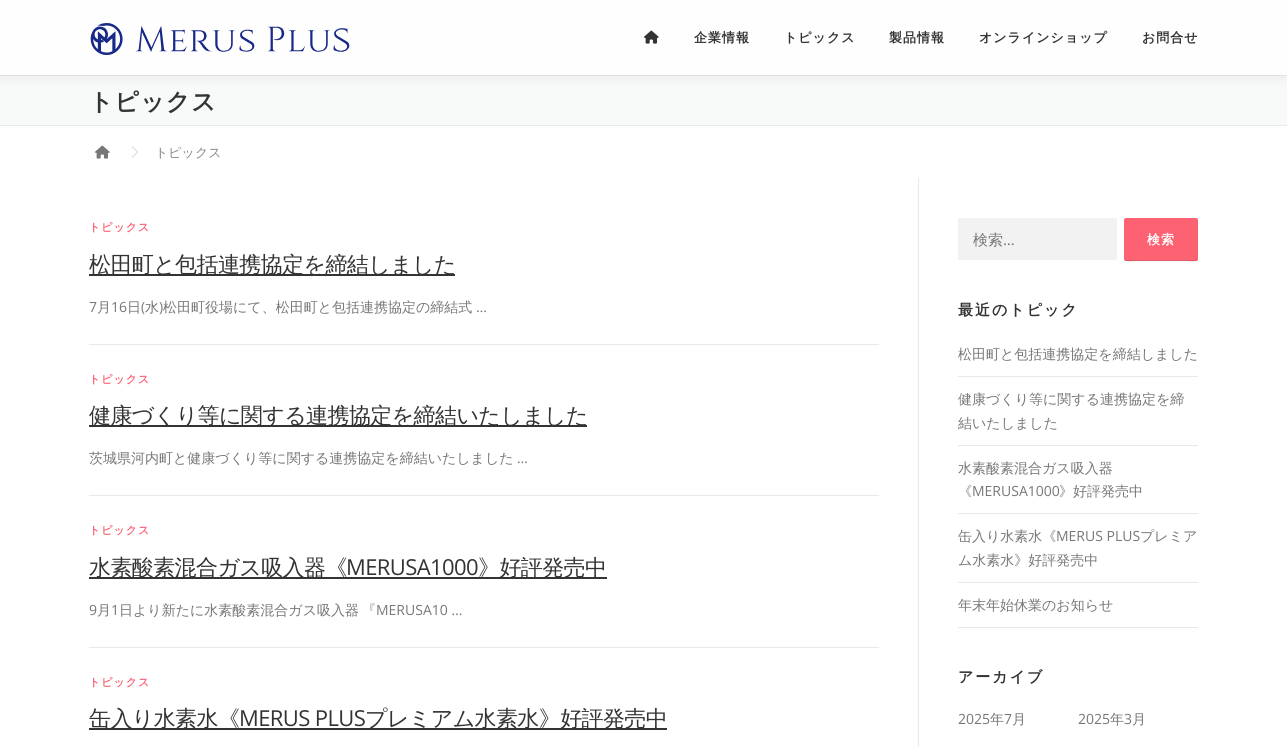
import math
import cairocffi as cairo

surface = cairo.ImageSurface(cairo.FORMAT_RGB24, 1287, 747)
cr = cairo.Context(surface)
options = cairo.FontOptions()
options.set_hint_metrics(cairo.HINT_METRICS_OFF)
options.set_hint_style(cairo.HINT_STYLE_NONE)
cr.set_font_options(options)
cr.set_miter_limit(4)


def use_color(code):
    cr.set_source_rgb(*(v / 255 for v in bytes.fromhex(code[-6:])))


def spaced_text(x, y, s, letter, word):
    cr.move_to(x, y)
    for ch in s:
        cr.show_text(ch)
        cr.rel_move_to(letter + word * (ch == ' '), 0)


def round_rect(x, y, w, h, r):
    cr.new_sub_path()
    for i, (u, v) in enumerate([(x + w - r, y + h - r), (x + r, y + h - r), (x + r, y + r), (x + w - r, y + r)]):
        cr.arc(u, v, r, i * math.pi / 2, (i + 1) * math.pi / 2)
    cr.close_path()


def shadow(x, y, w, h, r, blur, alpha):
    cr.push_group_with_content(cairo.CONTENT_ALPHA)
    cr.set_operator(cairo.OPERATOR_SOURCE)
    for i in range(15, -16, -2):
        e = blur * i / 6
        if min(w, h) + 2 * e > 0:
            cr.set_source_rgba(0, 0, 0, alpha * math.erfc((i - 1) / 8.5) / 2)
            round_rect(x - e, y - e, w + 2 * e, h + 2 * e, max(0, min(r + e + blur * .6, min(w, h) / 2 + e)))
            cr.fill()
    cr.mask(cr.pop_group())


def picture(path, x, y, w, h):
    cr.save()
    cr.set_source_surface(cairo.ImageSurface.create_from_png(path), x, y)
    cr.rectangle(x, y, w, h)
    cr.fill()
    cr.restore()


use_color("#ffffff")
cr.paint()
use_color("#f8f9f9")
cr.rectangle(0, 76, 1287, 49)
cr.fill()
use_color("#e9e9e9")
cr.rectangle(0, 75, 1287, 1)
cr.fill()
use_color("#323232")
shadow(0, 5, 1287, 75, 0, 5, 0.06)
use_color("#fefefe")
cr.rectangle(0, 2, 1287, 73)
cr.fill()
picture("img1.png", 90, 23, 260, 32)
picture("img2.png", 644, 30, 15, 14)
cr.select_font_face("WenQuanYi Zen Hei", cairo.FONT_SLANT_NORMAL, cairo.FONT_WEIGHT_BOLD)
cr.set_font_size(13)
use_color("#333333")
spaced_text(694, 42, "企業情報", 1, 0)
spaced_text(784, 42, "トピックス", 1, 0)
spaced_text(889, 42, "製品情報", 1, 0)
spaced_text(979, 42, "オンラインショップ", 1, 0)
spaced_text(1142, 42, "お問合せ", 1, 0)
use_color("#e9e9e9")
cr.rectangle(0, 125, 1287, 1)
cr.fill()
cr.set_font_size(24)
use_color("#333333")
spaced_text(89, 110, "トピックス", 1, 0)
picture("img3.png", 95, 145, 15, 14)
use_color("#cccccc")
cr.new_path()
cr.move_to(132, 158)
cr.line_to(132, 146)
cr.line_to(138, 152)
cr.close_path()
cr.fill()
use_color("#ffffff")
cr.new_path()
cr.move_to(132, 157)
cr.line_to(132, 147)
cr.line_to(137, 152)
cr.close_path()
cr.fill()
cr.select_font_face("WenQuanYi Zen Hei Medium")
cr.set_font_size(13)
use_color("#858585")
cr.move_to(155, 157)
cr.show_text("トピックス")
use_color("#e9e9e9")
cr.rectangle(918, 178, 1, 569)
cr.fill()
cr.select_font_face("WenQuanYi Zen Hei", cairo.FONT_SLANT_NORMAL, cairo.FONT_WEIGHT_BOLD)
cr.set_font_size(11)
use_color("#fc6271")
spaced_text(89, 231, "トピックス", 1, 0)
use_color("#333333")
cr.rectangle(89, 274, 366, 2)
cr.fill()
cr.select_font_face("WenQuanYi Zen Hei Medium")
cr.set_font_size(22)
spaced_text(89, 272, "松田町と包括連携協定を締結しました", -0.6, 0)
cr.select_font_face("Open Sans")
cr.set_font_size(14)
use_color("#777777")
cr.move_to(89, 312)
cr.show_text("7")
cr.select_font_face("WenQuanYi Zen Hei Medium")
cr.move_to(97, 312)
cr.show_text("月")
cr.select_font_face("Open Sans")
cr.move_to(111, 312)
cr.show_text("16")
cr.select_font_face("WenQuanYi Zen Hei Medium")
cr.move_to(127, 312)
cr.show_text("日")
cr.select_font_face("Open Sans")
cr.move_to(141, 312)
cr.show_text("(")
cr.select_font_face("WenQuanYi Zen Hei Medium")
cr.move_to(145, 312)
cr.show_text("水")
cr.select_font_face("Open Sans")
cr.move_to(159, 312)
cr.show_text(")")
cr.select_font_face("WenQuanYi Zen Hei Medium")
cr.move_to(163, 312)
cr.show_text("松田町役場にて、松田町と包括連携協定の締結式")
cr.select_font_face("Open Sans")
cr.move_to(476, 312)
cr.show_text("…")
use_color("#e9e9e9")
cr.rectangle(89, 344, 790, 1)
cr.fill()
cr.select_font_face("WenQuanYi Zen Hei", cairo.FONT_SLANT_NORMAL, cairo.FONT_WEIGHT_BOLD)
cr.set_font_size(11)
use_color("#fc6271")
spaced_text(89, 383, "トピックス", 1, 0)
use_color("#333333")
cr.rectangle(89, 425, 498, 2)
cr.fill()
cr.select_font_face("WenQuanYi Zen Hei Medium")
cr.set_font_size(22)
spaced_text(89, 423, "健康づくり等に関する連携協定を締結いたしました", -0.6, 0)
cr.set_font_size(14)
use_color("#777777")
cr.move_to(89, 463)
cr.show_text("茨城県河内町と健康づくり等に関する連携協定を締結いたしました")
cr.select_font_face("Open Sans")
cr.move_to(517, 463)
cr.show_text("…")
use_color("#e9e9e9")
cr.rectangle(89, 495, 790, 1)
cr.fill()
cr.select_font_face("WenQuanYi Zen Hei", cairo.FONT_SLANT_NORMAL, cairo.FONT_WEIGHT_BOLD)
cr.set_font_size(11)
use_color("#fc6271")
spaced_text(89, 534, "トピックス", 1, 0)
use_color("#333333")
cr.rectangle(89, 577, 518, 2)
cr.fill()
cr.select_font_face("WenQuanYi Zen Hei Medium")
cr.set_font_size(22)
spaced_text(89, 575, "水素酸素混合ガス吸入器《", -0.6, 0)
cr.select_font_face("Open Sans")
spaced_text(346, 575, "MERUSA1000", -0.6, 0)
cr.select_font_face("WenQuanYi Zen Hei Medium")
spaced_text(478, 575, "》好評発売中", -0.6, 0)
cr.select_font_face("Open Sans")
cr.set_font_size(14)
use_color("#777777")
cr.move_to(89, 615)
cr.show_text("9")
cr.select_font_face("WenQuanYi Zen Hei Medium")
cr.move_to(97, 615)
cr.show_text("月")
cr.select_font_face("Open Sans")
cr.move_to(111, 615)
cr.show_text("1")
cr.select_font_face("WenQuanYi Zen Hei Medium")
cr.move_to(119, 615)
cr.show_text("日より新たに水素酸素混合ガス吸入器")
cr.move_to(362, 615)
cr.show_text("『")
cr.select_font_face("Open Sans")
cr.move_to(376, 615)
cr.show_text("MERUSA10 …")
use_color("#e9e9e9")
cr.rectangle(89, 647, 790, 1)
cr.fill()
cr.select_font_face("WenQuanYi Zen Hei", cairo.FONT_SLANT_NORMAL, cairo.FONT_WEIGHT_BOLD)
cr.set_font_size(11)
use_color("#fc6271")
spaced_text(89, 686, "トピックス", 1, 0)
use_color("#333333")
cr.rectangle(89, 728, 578, 2)
cr.fill()
cr.select_font_face("WenQuanYi Zen Hei Medium")
cr.set_font_size(22)
spaced_text(89, 726, "缶入り水素水《", -0.6, 0)
cr.select_font_face("Open Sans")
spaced_text(239, 726, "MERUS PLUS", -0.6, 0)
cr.select_font_face("WenQuanYi Zen Hei Medium")
spaced_text(365, 726, "プレミアム水素水》好評発売中", -0.6, 0)
use_color("#f2f2f2")
cr.rectangle(958, 218, 159, 42)
cr.fill()
cr.set_font_size(15)
use_color("#777777")
cr.move_to(973, 245)
cr.show_text("検索")
cr.select_font_face("Open Sans")
cr.move_to(1003, 245)
cr.show_text("…")
use_color("#fc6271")
round_rect(1124, 218, 74, 43, 2)
cr.fill()
cr.set_source_rgba(0, 0, 0, 0.1)
cr.new_path()
cr.move_to(1124, 258)
cr.curve_to(1124, 264, 1134, 261, 1138, 261)
cr.line_to(1184, 261)
cr.curve_to(1188, 261, 1198, 264, 1198, 258)
cr.line_to(1197, 259)
cr.line_to(1196, 260)
cr.line_to(1126, 260)
cr.curve_to(1125, 260, 1124, 259, 1124, 258)
cr.close_path()
cr.fill()
cr.select_font_face("WenQuanYi Zen Hei", cairo.FONT_SLANT_NORMAL, cairo.FONT_WEIGHT_BOLD)
cr.set_font_size(13)
use_color("#ffffff")
spaced_text(1147, 244, "検索", 1, 0)
cr.set_font_size(15)
use_color("#333333")
spaced_text(958, 315, "最近のトピック", 2, 0)
use_color("#e9e9e9")
cr.rectangle(958, 376, 240, 1)
cr.fill()
cr.select_font_face("WenQuanYi Zen Hei Medium")
cr.set_font_size(14)
use_color("#777777")
cr.move_to(958, 359)
cr.show_text("松田町と包括連携協定を締結しました")
use_color("#e9e9e9")
cr.rectangle(958, 445, 240, 1)
cr.fill()
use_color("#777777")
cr.move_to(958, 404)
cr.show_text("健康づくり等に関する連携協定を締")
cr.move_to(958, 428)
cr.show_text("結いたしました")
use_color("#e9e9e9")
cr.rectangle(958, 513, 240, 1)
cr.fill()
use_color("#777777")
cr.move_to(958, 473)
cr.show_text("水素酸素混合ガス吸入器")
cr.move_to(958, 496)
cr.show_text("《")
cr.select_font_face("Open Sans")
cr.move_to(972, 496)
cr.show_text("MERUSA1000")
cr.select_font_face("WenQuanYi Zen Hei Medium")
cr.move_to(1059, 496)
cr.show_text("》好評発売中")
use_color("#e9e9e9")
cr.rectangle(958, 582, 240, 1)
cr.fill()
use_color("#777777")
cr.move_to(958, 541)
cr.show_text("缶入り水素水《")
cr.select_font_face("Open Sans")
cr.move_to(1056, 541)
cr.show_text("MERUS PLUS")
cr.select_font_face("WenQuanYi Zen Hei Medium")
cr.move_to(1140, 541)
cr.show_text("プレミア")
cr.move_to(958, 565)
cr.show_text("ム水素水》好評発売中")
use_color("#e9e9e9")
cr.rectangle(958, 627, 240, 1)
cr.fill()
use_color("#777777")
cr.move_to(958, 610)
cr.show_text("年末年始休業のお知らせ")
cr.select_font_face("WenQuanYi Zen Hei", cairo.FONT_SLANT_NORMAL, cairo.FONT_WEIGHT_BOLD)
cr.set_font_size(15)
use_color("#333333")
spaced_text(958, 682, "アーカイブ", 2, 0)
cr.select_font_face("Open Sans")
cr.set_font_size(14)
use_color("#777777")
cr.move_to(958, 724)
cr.show_text("2025")
cr.select_font_face("WenQuanYi Zen Hei Medium")
cr.move_to(990, 724)
cr.show_text("年")
cr.select_font_face("Open Sans")
cr.move_to(1004, 724)
cr.show_text("7")
cr.select_font_face("WenQuanYi Zen Hei Medium")
cr.move_to(1012, 724)
cr.show_text("月")
cr.select_font_face("Open Sans")
cr.move_to(1078, 724)
cr.show_text("2025")
cr.select_font_face("WenQuanYi Zen Hei Medium")
cr.move_to(1110, 724)
cr.show_text("年")
cr.select_font_face("Open Sans")
cr.move_to(1124, 724)
cr.show_text("3")
cr.select_font_face("WenQuanYi Zen Hei Medium")
cr.move_to(1132, 724)
cr.show_text("月")
surface.write_to_png("result.png")
